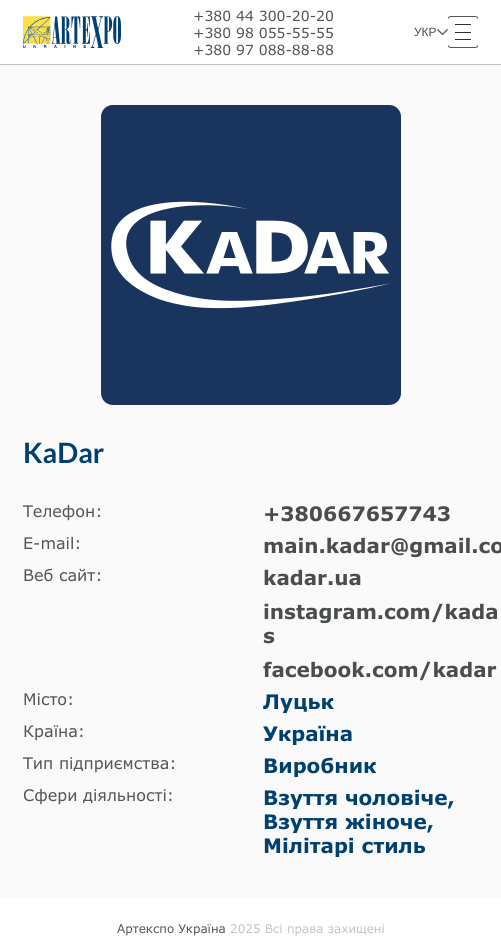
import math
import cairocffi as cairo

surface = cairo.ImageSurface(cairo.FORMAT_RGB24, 501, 949)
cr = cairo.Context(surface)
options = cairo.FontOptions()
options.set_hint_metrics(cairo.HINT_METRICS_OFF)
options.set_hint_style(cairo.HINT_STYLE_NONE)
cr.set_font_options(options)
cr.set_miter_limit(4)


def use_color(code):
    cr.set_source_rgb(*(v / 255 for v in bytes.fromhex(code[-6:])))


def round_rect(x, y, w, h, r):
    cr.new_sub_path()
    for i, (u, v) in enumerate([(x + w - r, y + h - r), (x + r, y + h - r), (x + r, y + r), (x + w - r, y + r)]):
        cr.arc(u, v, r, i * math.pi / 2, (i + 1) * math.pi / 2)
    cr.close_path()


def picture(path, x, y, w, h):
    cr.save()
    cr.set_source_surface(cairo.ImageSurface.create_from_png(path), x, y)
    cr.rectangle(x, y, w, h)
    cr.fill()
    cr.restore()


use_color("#fafafa")
cr.paint()
use_color("#ffffff")
cr.rectangle(0, 0, 501, 64)
cr.fill()
use_color("#bfbfbf")
cr.rectangle(0, 64, 501, 1)
cr.fill()
picture("img1.png", 23, 16, 98, 32)
cr.select_font_face("Verdana")
cr.set_font_size(14)
use_color("#555555")
cr.move_to(193, 21)
cr.show_text("+380 44 300-20-20")
cr.move_to(193, 38)
cr.show_text("+380 98 055-55-55")
cr.move_to(193, 55)
cr.show_text("+380 97 088-88-88")
cr.select_font_face("Liberation Sans")
cr.set_font_size(12)
use_color("#4a4d4e")
cr.move_to(414, 36)
cr.show_text("УКР")
cr.save()
cr.rectangle(448, 16, 30, 32)
cr.clip()
round_rect(447.5, 16.5, 31, 31, 3.5)
use_color("#555555")
cr.set_line_width(1)
cr.stroke()
cr.restore()
picture("img2.png", 437, 29, 11, 6)
use_color("#312c38")
cr.rectangle(455, 24, 16, 1)
cr.fill()
cr.rectangle(455, 39, 16, 1)
cr.fill()
cr.rectangle(455, 32, 16, 1)
cr.fill()
picture("img3.png", 101, 105, 300, 300)
cr.select_font_face("Lato", cairo.FONT_SLANT_NORMAL, cairo.FONT_WEIGHT_BOLD)
cr.set_font_size(28)
use_color("#004070")
cr.move_to(23, 463)
cr.show_text("KaDar")
cr.select_font_face("Verdana")
cr.set_font_size(16)
use_color("#555555")
cr.move_to(23, 517)
cr.show_text("Телефон:")
cr.select_font_face("Verdana", cairo.FONT_SLANT_NORMAL, cairo.FONT_WEIGHT_BOLD)
cr.set_font_size(20)
use_color("#4a4d4e")
cr.move_to(263, 521)
cr.show_text("+380667657743")
cr.select_font_face("Verdana")
cr.set_font_size(16)
use_color("#555555")
cr.move_to(23, 549)
cr.show_text("E-mail:")
cr.select_font_face("Verdana", cairo.FONT_SLANT_NORMAL, cairo.FONT_WEIGHT_BOLD)
cr.set_font_size(20)
use_color("#4a4d4e")
cr.move_to(263, 553)
cr.show_text("main.kadar@gmail.co")
cr.select_font_face("Verdana")
cr.set_font_size(16)
use_color("#555555")
cr.move_to(23, 581)
cr.show_text("Веб сайт:")
cr.select_font_face("Verdana", cairo.FONT_SLANT_NORMAL, cairo.FONT_WEIGHT_BOLD)
cr.set_font_size(20)
use_color("#4a4d4e")
cr.move_to(263, 585)
cr.show_text("kadar.ua")
cr.move_to(263, 619)
cr.show_text("instagram.com/kada")
cr.move_to(263, 643)
cr.show_text("s")
cr.move_to(263, 677)
cr.show_text("facebook.com/kadar")
cr.select_font_face("Verdana")
cr.set_font_size(16)
use_color("#555555")
cr.move_to(23, 705)
cr.show_text("Місто:")
cr.select_font_face("Verdana", cairo.FONT_SLANT_NORMAL, cairo.FONT_WEIGHT_BOLD)
cr.set_font_size(20)
use_color("#004070")
cr.move_to(263, 709)
cr.show_text("Луцьк")
cr.select_font_face("Verdana")
cr.set_font_size(16)
use_color("#555555")
cr.move_to(23, 737)
cr.show_text("Країна:")
cr.select_font_face("Verdana", cairo.FONT_SLANT_NORMAL, cairo.FONT_WEIGHT_BOLD)
cr.set_font_size(20)
use_color("#004070")
cr.move_to(263, 741)
cr.show_text("Україна")
cr.select_font_face("Verdana")
cr.set_font_size(16)
use_color("#555555")
cr.move_to(23, 769)
cr.show_text("Тип підприємства:")
cr.select_font_face("Verdana", cairo.FONT_SLANT_NORMAL, cairo.FONT_WEIGHT_BOLD)
cr.set_font_size(20)
use_color("#004070")
cr.move_to(263, 773)
cr.show_text("Виробник")
cr.select_font_face("Verdana")
cr.set_font_size(16)
use_color("#555555")
cr.move_to(23, 801)
cr.show_text("Сфери діяльності:")
cr.select_font_face("Verdana", cairo.FONT_SLANT_NORMAL, cairo.FONT_WEIGHT_BOLD)
cr.set_font_size(20)
use_color("#004070")
cr.move_to(263, 805)
cr.show_text("Взуття чоловіче,")
cr.move_to(263, 829)
cr.show_text("Взуття жіноче,")
cr.move_to(263, 853)
cr.show_text("Мілітарі стиль")
use_color("#ffffff")
cr.rectangle(0, 897, 501, 52)
cr.fill()
cr.select_font_face("Verdana")
cr.set_font_size(12)
use_color("#555555")
cr.move_to(117, 933)
cr.show_text("Артекспо Україна")
use_color("#c4c4c4")
cr.move_to(230, 933)
cr.show_text("2025 Всі права захищені")
surface.write_to_png("result.png")
